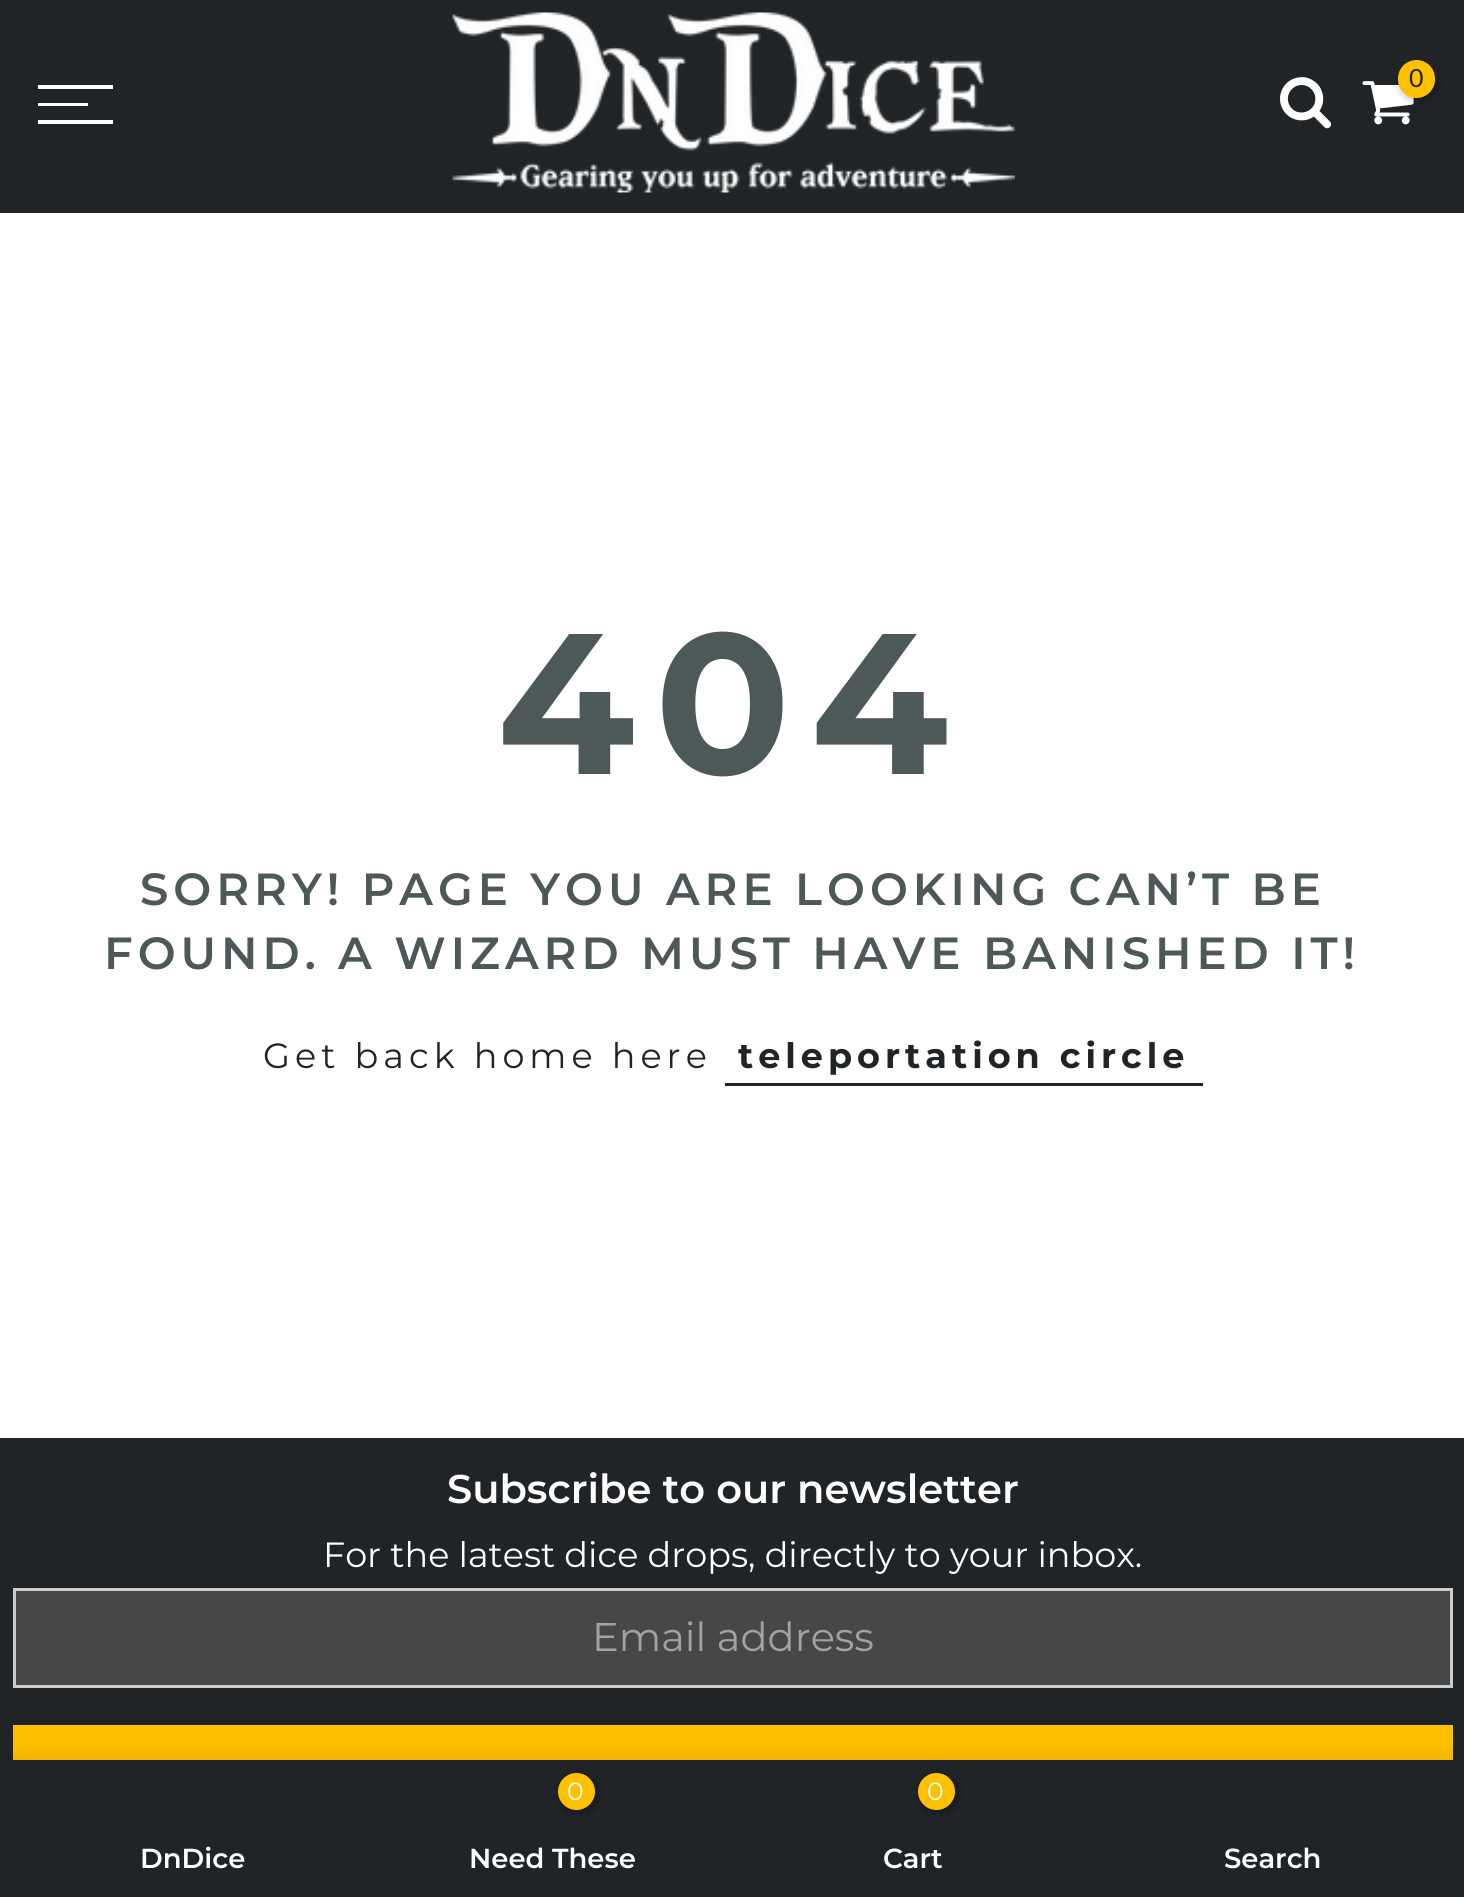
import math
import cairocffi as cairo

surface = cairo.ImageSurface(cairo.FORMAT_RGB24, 1464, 1897)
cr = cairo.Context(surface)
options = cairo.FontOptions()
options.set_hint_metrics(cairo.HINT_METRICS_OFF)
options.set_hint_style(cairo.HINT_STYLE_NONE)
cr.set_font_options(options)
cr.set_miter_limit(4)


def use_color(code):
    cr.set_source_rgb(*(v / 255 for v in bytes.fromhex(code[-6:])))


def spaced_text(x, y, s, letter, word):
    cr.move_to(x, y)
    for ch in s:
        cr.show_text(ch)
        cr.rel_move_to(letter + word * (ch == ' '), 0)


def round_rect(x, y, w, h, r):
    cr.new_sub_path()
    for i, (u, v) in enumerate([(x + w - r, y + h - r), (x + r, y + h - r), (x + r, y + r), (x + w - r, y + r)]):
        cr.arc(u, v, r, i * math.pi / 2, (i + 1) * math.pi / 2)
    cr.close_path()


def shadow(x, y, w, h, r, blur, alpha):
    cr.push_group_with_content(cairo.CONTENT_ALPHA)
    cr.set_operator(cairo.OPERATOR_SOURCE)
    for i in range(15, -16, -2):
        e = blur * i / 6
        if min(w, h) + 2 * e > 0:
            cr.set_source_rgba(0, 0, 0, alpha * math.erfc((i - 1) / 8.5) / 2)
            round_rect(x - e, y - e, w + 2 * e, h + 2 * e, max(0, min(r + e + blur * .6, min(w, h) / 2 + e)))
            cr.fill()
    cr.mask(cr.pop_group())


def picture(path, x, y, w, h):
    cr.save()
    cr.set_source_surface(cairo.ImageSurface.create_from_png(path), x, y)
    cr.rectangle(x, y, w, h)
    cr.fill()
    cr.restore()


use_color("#ffffff")
cr.paint()
use_color("#212427")
cr.rectangle(0, 0, 1464, 213)
cr.fill()
picture("img1.png", 452, 12, 563, 181)
picture("img2.png", 1280, 77, 52, 52)
picture("img3.png", 1362, 81, 52, 44)
use_color("#000000")
shadow(1400, 63, 38, 37, 18.5, 4, 0.3)
use_color("#ffc000")
round_rect(1398, 60, 37, 38, 18.5)
cr.fill()
cr.select_font_face("Lato")
cr.set_font_size(25)
use_color("#212427")
cr.move_to(1409, 87)
cr.show_text("0")
use_color("#ffffff")
cr.rectangle(38, 85, 75, 4)
cr.fill()
cr.rectangle(38, 103, 50, 3)
cr.fill()
cr.rectangle(38, 120, 75, 4)
cr.fill()
cr.select_font_face("Montserrat", cairo.FONT_SLANT_NORMAL, cairo.FONT_WEIGHT_BOLD)
cr.set_font_size(200)
use_color("#4d5959")
spaced_text(497, 774, "404", 20, 0)
cr.select_font_face("Montserrat SemiBold")
cr.set_font_size(45)
spaced_text(140, 905, "SORRY! PAGE YOU ARE LOOKING CAN’T BE", 5, 0)
spaced_text(104, 969, "FOUND. A WIZARD MUST HAVE BANISHED IT!", 5, 0)
cr.select_font_face("Montserrat")
cr.set_font_size(35)
use_color("#212427")
spaced_text(263, 1068, "Get back home here", 5, 0)
cr.select_font_face("Montserrat", cairo.FONT_SLANT_NORMAL, cairo.FONT_WEIGHT_BOLD)
spaced_text(738, 1068, "teleportation circle", 5, 0)
use_color("#222222")
cr.rectangle(725, 1083, 478, 3)
cr.fill()
use_color("#212427")
cr.rectangle(0, 1438, 1464, 322)
cr.fill()
cr.select_font_face("Montserrat SemiBold")
cr.set_font_size(40)
use_color("#ffffff")
cr.move_to(447, 1503)
cr.show_text("Subscribe to our newsletter")
cr.select_font_face("Montserrat")
cr.set_font_size(35)
cr.move_to(323, 1567)
cr.show_text("For the latest dice drops, directly to your inbox.")
use_color("#474747")
cr.rectangle(14.5, 1589.5, 1437, 97)
cr.fill_preserve()
use_color("#cccccc")
cr.set_line_width(3)
cr.stroke()
cr.set_font_size(40)
use_color("#a0a2a3")
cr.move_to(592, 1651)
cr.show_text("Email address")
use_color("#ffbe00")
cr.rectangle(13, 1725, 1440, 35)
cr.fill()
use_color("#000000")
shadow(0, 1760, 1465, 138, 0, 11, 0.12)
use_color("#202427")
cr.rectangle(0, 1760, 1464, 137)
cr.fill()
cr.select_font_face("Montserrat SemiBold")
cr.set_font_size(27.5)
use_color("#ffffff")
cr.move_to(140, 1868)
cr.show_text("DnDice")
use_color("#000000")
shadow(560, 1775, 38, 38, 19, 4, 0.3)
use_color("#ffc000")
cr.arc(576.5, 1791.5, 18.5, 0, 2 * math.pi)
cr.fill()
cr.select_font_face("Montserrat")
cr.set_font_size(25)
use_color("#ffffff")
cr.move_to(567, 1800)
cr.show_text("0")
cr.select_font_face("Montserrat SemiBold")
cr.set_font_size(27.5)
cr.move_to(469, 1868)
cr.show_text("Need These")
use_color("#000000")
shadow(920, 1775, 38, 38, 19, 4, 0.3)
use_color("#ffc000")
cr.arc(936.5, 1791.5, 18.5, 0, 2 * math.pi)
cr.fill()
cr.select_font_face("Montserrat")
cr.set_font_size(25)
use_color("#ffffff")
cr.move_to(927, 1800)
cr.show_text("0")
cr.select_font_face("Montserrat SemiBold")
cr.set_font_size(27.5)
cr.move_to(883, 1868)
cr.show_text("Cart")
cr.move_to(1224, 1868)
cr.show_text("Search")
surface.write_to_png("result.png")
